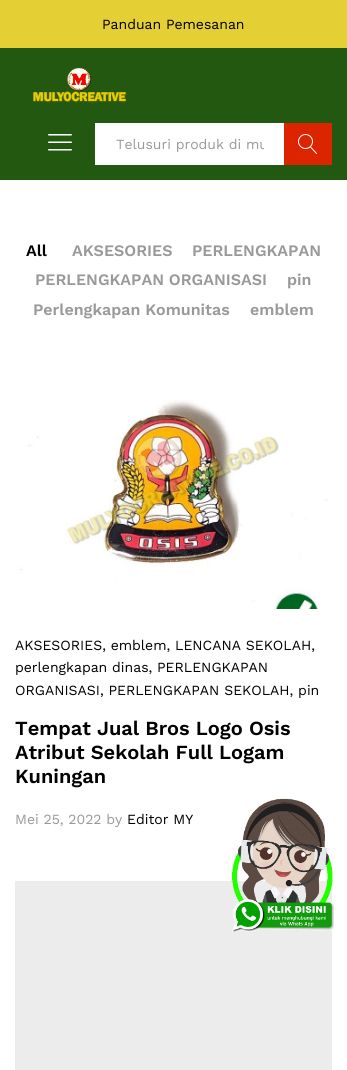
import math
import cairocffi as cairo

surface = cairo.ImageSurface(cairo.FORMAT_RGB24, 347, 1070)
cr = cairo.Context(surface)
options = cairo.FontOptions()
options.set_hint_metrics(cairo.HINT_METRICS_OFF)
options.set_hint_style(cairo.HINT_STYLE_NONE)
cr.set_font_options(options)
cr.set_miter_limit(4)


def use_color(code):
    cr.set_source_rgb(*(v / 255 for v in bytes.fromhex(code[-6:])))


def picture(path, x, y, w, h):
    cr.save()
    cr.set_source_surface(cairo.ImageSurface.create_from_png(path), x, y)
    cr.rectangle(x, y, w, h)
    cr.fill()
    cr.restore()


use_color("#ffffff")
cr.paint()
use_color("#e4cf34")
cr.rectangle(0, 0, 347, 48)
cr.fill()
cr.select_font_face("Work Sans")
cr.set_font_size(14)
use_color("#000000")
cr.move_to(102, 29)
cr.show_text("Panduan Pemesanan")
use_color("#225810")
cr.rectangle(0, 48, 347, 132)
cr.fill()
picture("img1.png", 33, 68, 94, 35)
picture("img2.png", 48, 134, 24, 17)
use_color("#ffffff")
cr.rectangle(95, 123, 189, 42)
cr.fill()
cr.save()
cr.rectangle(116, 136, 148, 16)
cr.clip()
use_color("#999999")
cr.move_to(116, 149)
cr.show_text("Telusuri produk di mu")
cr.restore()
use_color("#dd2400")
cr.rectangle(284, 123, 48, 42)
cr.fill()
picture("img3.png", 298, 134, 19, 20)
cr.select_font_face("Work Sans SemiBold")
cr.set_font_size(16)
use_color("#000000")
cr.move_to(26, 256)
cr.show_text("All")
use_color("#999999")
cr.move_to(72, 256)
cr.show_text("AKSESORIES")
cr.move_to(192, 256)
cr.show_text("PERLENGKAPAN")
cr.move_to(35, 285)
cr.show_text("PERLENGKAPAN ORGANISASI")
cr.move_to(287, 285)
cr.show_text("pin")
cr.move_to(33, 315)
cr.show_text("Perlengkapan Komunitas")
cr.move_to(250, 315)
cr.show_text("emblem")
picture("img4.png", 20, 400, 308, 209)
cr.select_font_face("Work Sans")
cr.set_font_size(14)
use_color("#000000")
cr.move_to(15, 650)
cr.show_text("AKSESORIES, emblem, LENCANA SEKOLAH,")
cr.move_to(15, 672)
cr.show_text("perlengkapan dinas, PERLENGKAPAN")
cr.move_to(15, 695)
cr.show_text("ORGANISASI, PERLENGKAPAN SEKOLAH, pin")
cr.select_font_face("Work Sans SemiBold")
cr.set_font_size(20)
cr.move_to(15, 735)
cr.show_text("Tempat Jual Bros Logo Osis")
cr.move_to(15, 759)
cr.show_text("Atribut Sekolah Full Logam")
cr.move_to(15, 783)
cr.show_text("Kuningan")
cr.select_font_face("Work Sans")
cr.set_font_size(14)
use_color("#999999")
cr.move_to(15, 824)
cr.show_text("Mei 25, 2022 by")
use_color("#000000")
cr.move_to(127, 824)
cr.show_text("Editor MY")
use_color("#ececec")
cr.rectangle(15, 881, 317, 189)
cr.fill()
picture("img5.png", 232, 798, 102, 135)
surface.write_to_png("result.png")
